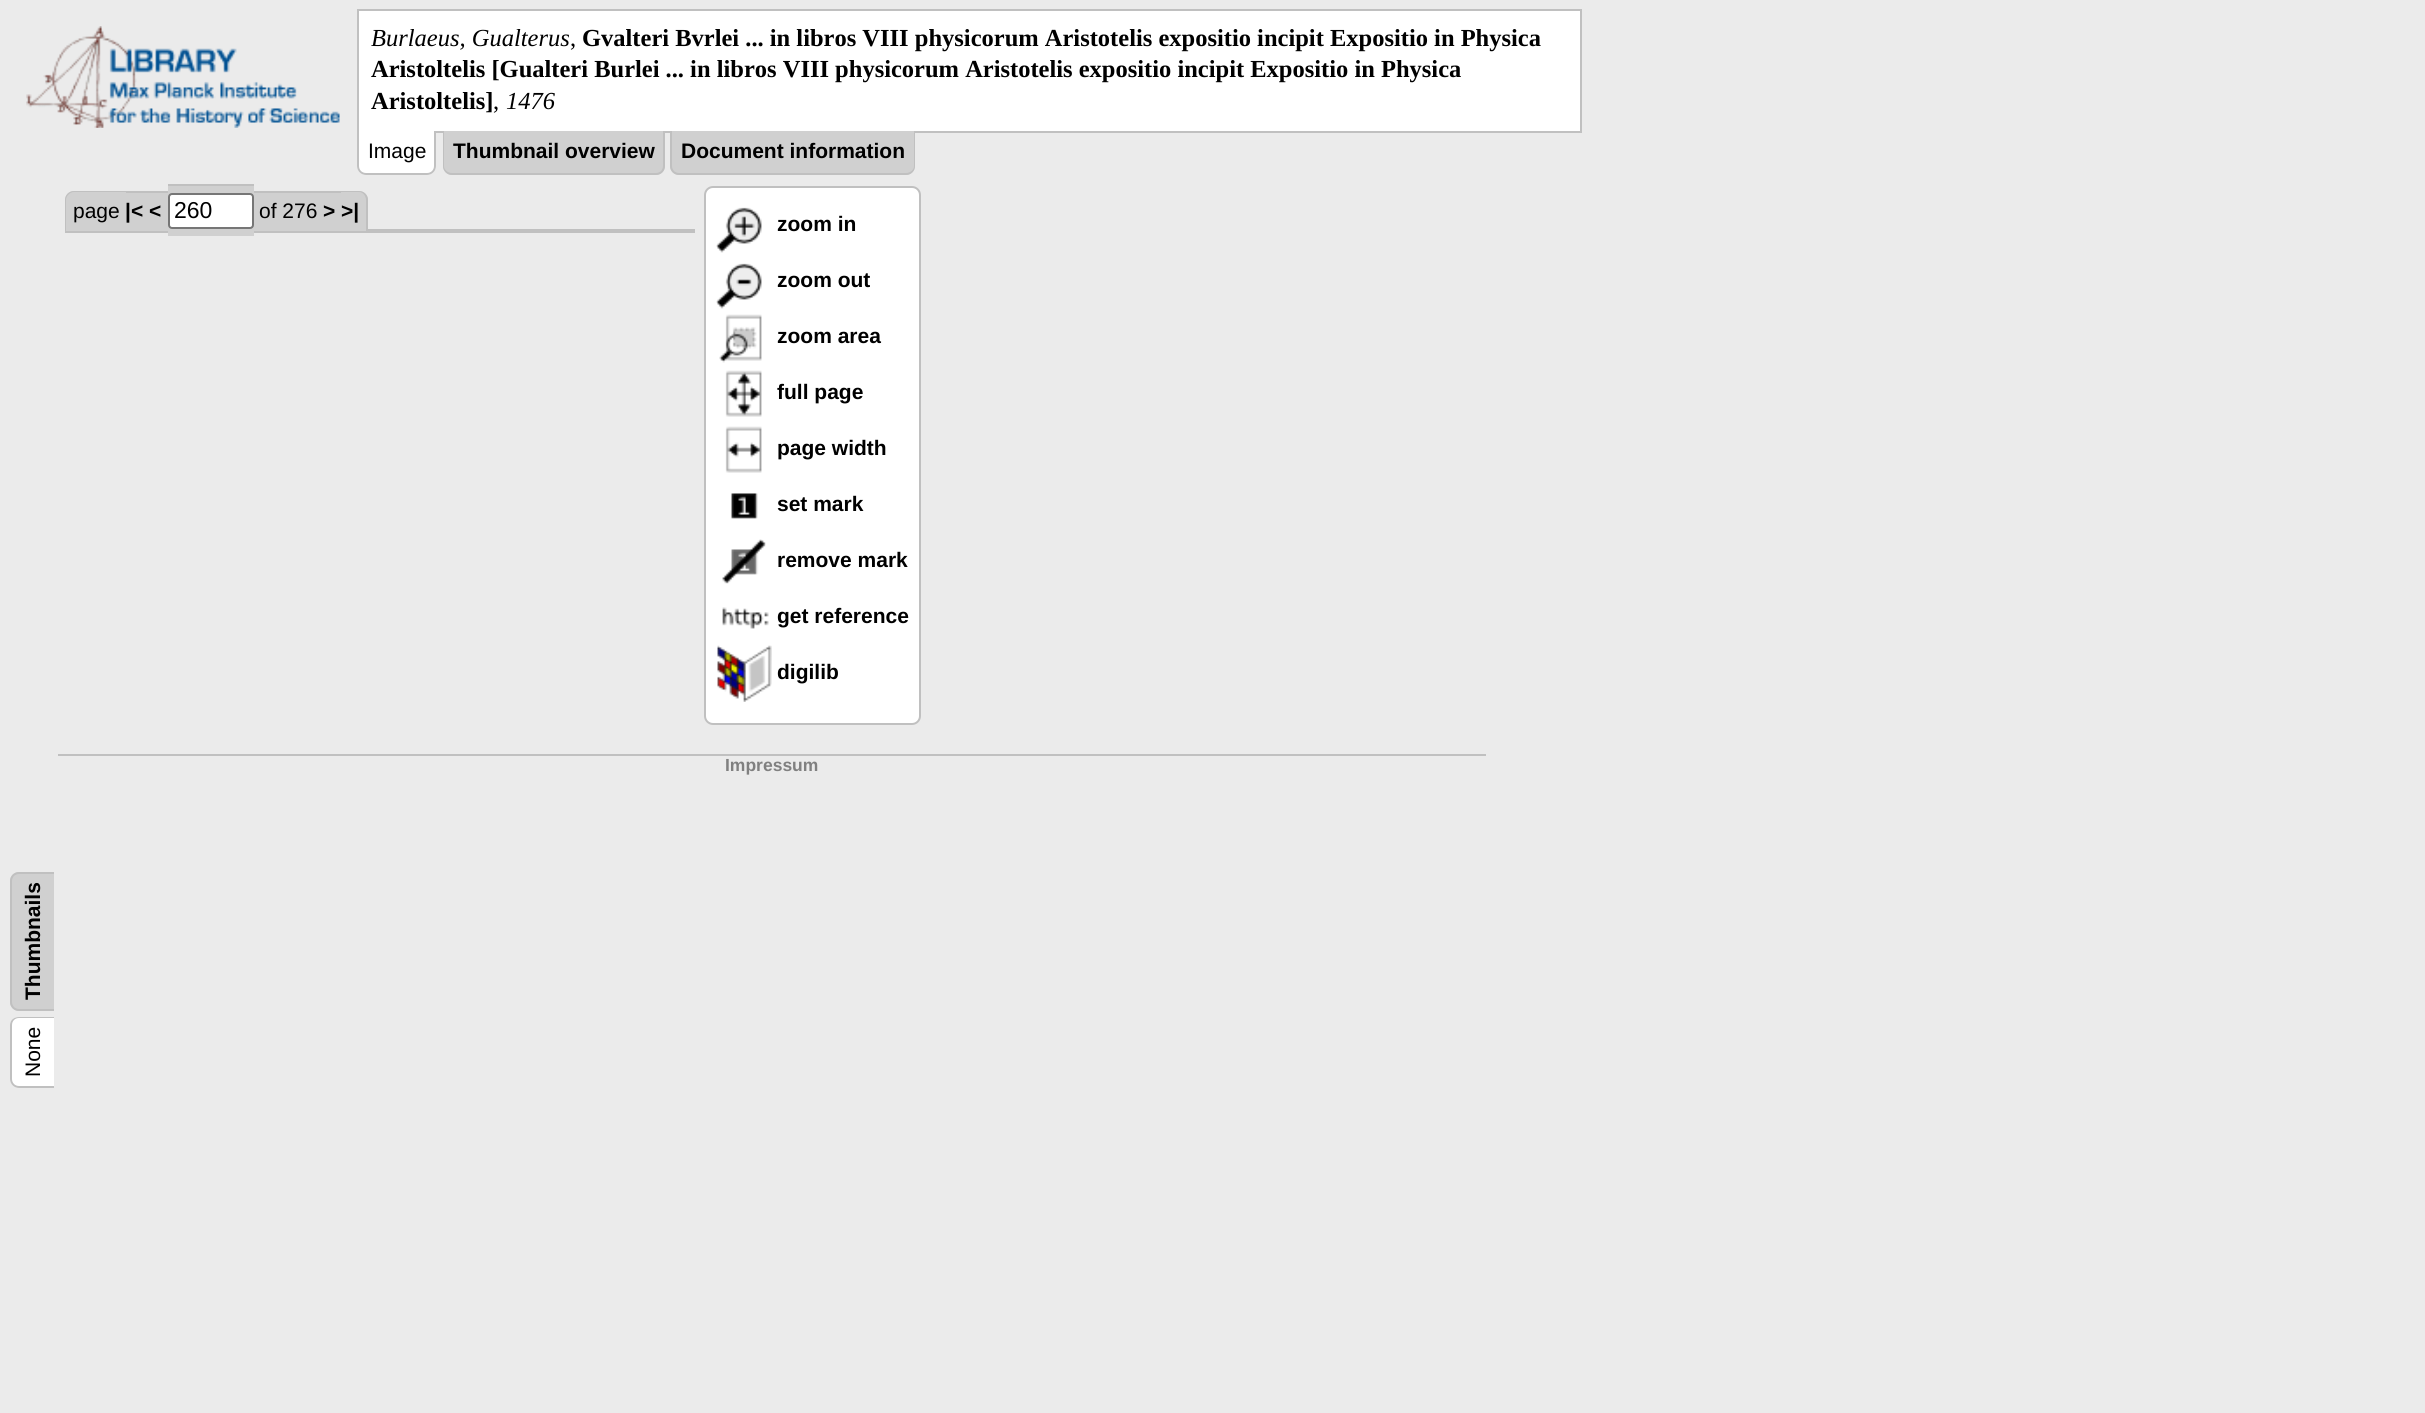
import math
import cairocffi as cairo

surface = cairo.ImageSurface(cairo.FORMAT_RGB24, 2425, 1413)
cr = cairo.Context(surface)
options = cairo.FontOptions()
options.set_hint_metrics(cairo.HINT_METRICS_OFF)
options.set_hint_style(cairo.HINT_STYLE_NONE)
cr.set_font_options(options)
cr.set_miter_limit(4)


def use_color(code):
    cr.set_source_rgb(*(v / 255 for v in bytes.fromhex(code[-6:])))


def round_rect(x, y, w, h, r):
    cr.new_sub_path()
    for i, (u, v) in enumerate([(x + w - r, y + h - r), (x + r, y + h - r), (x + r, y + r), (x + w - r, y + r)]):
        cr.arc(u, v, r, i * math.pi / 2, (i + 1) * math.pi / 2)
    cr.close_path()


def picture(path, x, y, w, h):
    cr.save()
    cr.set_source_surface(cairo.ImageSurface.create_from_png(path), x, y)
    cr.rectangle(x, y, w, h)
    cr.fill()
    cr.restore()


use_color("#ebebeb")
cr.paint()
picture("img1.png", 26, 26, 314, 102)
use_color("#ffffff")
cr.rectangle(358, 10, 1223, 122)
cr.fill_preserve()
use_color("#c0c0c0")
cr.stroke()
cr.select_font_face("Liberation Serif", cairo.FONT_SLANT_ITALIC)
cr.set_font_size(24.5)
use_color("#000000")
cr.move_to(371, 46)
cr.show_text("Burlaeus, Gualterus")
cr.select_font_face("Liberation Serif")
cr.move_to(570, 46)
cr.show_text(",")
cr.select_font_face("Liberation Serif", cairo.FONT_SLANT_NORMAL, cairo.FONT_WEIGHT_BOLD)
cr.move_to(582, 46)
cr.show_text("Gvalteri Bvrlei ... in libros VIII physicorum Aristotelis expositio incipit Expositio in Physica")
cr.move_to(371, 77)
cr.show_text("Aristoltelis [Gualteri Burlei ... in libros VIII physicorum Aristotelis expositio incipit Expositio in Physica")
cr.move_to(371, 109)
cr.show_text("Aristoltelis]")
cr.select_font_face("Liberation Serif")
cr.move_to(493, 109)
cr.show_text(",")
cr.select_font_face("Liberation Serif", cairo.FONT_SLANT_ITALIC)
cr.move_to(506, 109)
cr.show_text("1476")
use_color("#ffffff")
cr.new_path()
cr.move_to(357, 131)
cr.line_to(436, 131)
cr.line_to(436, 166)
cr.curve_to(436, 171, 432, 175, 427, 175)
cr.line_to(366, 175)
cr.curve_to(361, 175, 357, 171, 357, 166)
cr.close_path()
cr.fill()
use_color("#c0c0c0")
cr.set_fill_rule(cairo.FILL_RULE_EVEN_ODD)
cr.new_path()
cr.move_to(357, 131)
cr.line_to(436, 131)
cr.line_to(436, 166)
cr.curve_to(436, 171, 432, 175, 427, 175)
cr.line_to(366, 175)
cr.curve_to(361, 175, 357, 171, 357, 166)
cr.close_path()
cr.move_to(359, 131)
cr.line_to(434, 131)
cr.line_to(434, 166)
cr.curve_to(434, 170, 431, 173, 427, 173)
cr.line_to(366, 173)
cr.curve_to(362, 173, 359, 170, 359, 166)
cr.close_path()
cr.fill()
cr.select_font_face("Liberation Sans")
cr.set_font_size(21)
use_color("#000000")
cr.move_to(368, 158)
cr.show_text("Image")
use_color("#d0d0d0")
cr.new_path()
cr.move_to(443, 131)
cr.line_to(665, 131)
cr.line_to(665, 166)
cr.curve_to(665, 171, 661, 175, 656, 175)
cr.line_to(452, 175)
cr.curve_to(447, 175, 443, 171, 443, 166)
cr.close_path()
cr.fill()
use_color("#c0c0c0")
cr.new_path()
cr.move_to(443, 131)
cr.line_to(665, 131)
cr.line_to(665, 166)
cr.curve_to(665, 171, 661, 175, 656, 175)
cr.line_to(452, 175)
cr.curve_to(447, 175, 443, 171, 443, 166)
cr.close_path()
cr.move_to(444, 131)
cr.line_to(663, 131)
cr.line_to(663, 166)
cr.curve_to(663, 170, 660, 173, 656, 173)
cr.line_to(452, 173)
cr.curve_to(448, 173, 444, 170, 444, 166)
cr.close_path()
cr.fill()
cr.select_font_face("Liberation Sans", cairo.FONT_SLANT_NORMAL, cairo.FONT_WEIGHT_BOLD)
use_color("#000000")
cr.move_to(453, 158)
cr.show_text("Thumbnail overview")
use_color("#d0d0d0")
cr.new_path()
cr.move_to(670, 131)
cr.line_to(915, 131)
cr.line_to(915, 166)
cr.curve_to(915, 171, 911, 175, 906, 175)
cr.line_to(679, 175)
cr.curve_to(674, 175, 670, 171, 670, 166)
cr.close_path()
cr.fill()
use_color("#c0c0c0")
cr.new_path()
cr.move_to(670, 131)
cr.line_to(915, 131)
cr.line_to(915, 166)
cr.curve_to(915, 171, 911, 175, 906, 175)
cr.line_to(679, 175)
cr.curve_to(674, 175, 670, 171, 670, 166)
cr.close_path()
cr.move_to(672, 131)
cr.line_to(914, 131)
cr.line_to(914, 166)
cr.curve_to(914, 170, 910, 173, 906, 173)
cr.line_to(679, 173)
cr.curve_to(675, 173, 672, 170, 672, 166)
cr.close_path()
cr.fill()
use_color("#000000")
cr.move_to(681, 158)
cr.show_text("Document information")
use_color("#c0c0c0")
cr.rectangle(65, 229, 630, 4)
cr.fill()
use_color("#d0d0d0")
cr.new_path()
cr.move_to(74, 191)
cr.line_to(126, 191)
cr.line_to(126, 231)
cr.line_to(65, 231)
cr.line_to(65, 200)
cr.curve_to(65, 195, 69, 191, 74, 191)
cr.close_path()
cr.fill()
use_color("#c0c0c0")
cr.new_path()
cr.move_to(74, 191)
cr.line_to(126, 191)
cr.line_to(126, 231)
cr.line_to(65, 231)
cr.line_to(65, 200)
cr.curve_to(65, 195, 69, 191, 74, 191)
cr.close_path()
cr.move_to(74, 192)
cr.line_to(126, 192)
cr.line_to(126, 231)
cr.line_to(66, 231)
cr.line_to(66, 200)
cr.curve_to(66, 196, 70, 192, 74, 192)
cr.close_path()
cr.fill()
use_color("#d0d0d0")
cr.rectangle(126, 193, 18, 38)
cr.fill()
use_color("#c0c0c0")
cr.rectangle(126, 191, 18, 2)
cr.fill()
use_color("#d0d0d0")
cr.rectangle(144, 191, 5, 40)
cr.fill()
use_color("#c0c0c0")
cr.rectangle(144, 191, 17, 2)
cr.fill()
use_color("#d0d0d0")
cr.rectangle(149, 193, 12, 38)
cr.fill()
cr.rectangle(161, 191, 7, 40)
cr.fill()
use_color("#c0c0c0")
cr.rectangle(161, 191, 7, 2)
cr.fill()
use_color("#d0d0d0")
cr.rectangle(168, 186, 86, 50)
cr.fill()
use_color("#c0c0c0")
cr.rectangle(168, 184, 86, 2)
cr.fill()
use_color("#d0d0d0")
cr.rectangle(254, 191, 5, 40)
cr.fill()
use_color("#c0c0c0")
cr.rectangle(254, 191, 82, 2)
cr.fill()
use_color("#d0d0d0")
cr.rectangle(259, 193, 77, 38)
cr.fill()
cr.rectangle(336, 191, 5, 40)
cr.fill()
use_color("#c0c0c0")
cr.rectangle(336, 191, 5, 2)
cr.fill()
use_color("#d0d0d0")
cr.new_path()
cr.move_to(341, 191)
cr.line_to(359, 191)
cr.curve_to(364, 191, 368, 195, 368, 200)
cr.line_to(368, 231)
cr.line_to(341, 231)
cr.close_path()
cr.fill()
use_color("#c0c0c0")
cr.new_path()
cr.move_to(341, 191)
cr.line_to(359, 191)
cr.curve_to(364, 191, 368, 195, 368, 200)
cr.line_to(368, 231)
cr.line_to(341, 231)
cr.close_path()
cr.move_to(341, 192)
cr.line_to(359, 192)
cr.curve_to(363, 192, 366, 196, 366, 200)
cr.line_to(366, 231)
cr.line_to(341, 231)
cr.close_path()
cr.fill()
cr.select_font_face("Liberation Sans")
use_color("#000000")
cr.move_to(73, 218)
cr.show_text("page")
cr.select_font_face("Liberation Sans", cairo.FONT_SLANT_NORMAL, cairo.FONT_WEIGHT_BOLD)
cr.move_to(125, 218)
cr.show_text("|< <")
use_color("#ffffff")
round_rect(169, 194, 84, 34, 3)
cr.fill_preserve()
use_color("#767676")
cr.stroke()
cr.select_font_face("Liberation Sans")
cr.set_font_size(23)
use_color("#000000")
cr.move_to(174, 218)
cr.show_text("260")
cr.set_font_size(21)
cr.move_to(259, 218)
cr.show_text("of 276")
cr.select_font_face("Liberation Sans", cairo.FONT_SLANT_NORMAL, cairo.FONT_WEIGHT_BOLD)
cr.move_to(323, 218)
cr.show_text("> >|")
use_color("#ffffff")
round_rect(705, 187, 215, 537, 8)
cr.fill_preserve()
use_color("#c0c0c0")
cr.stroke()
picture("img2.png", 716, 207, 46, 46)
use_color("#000000")
cr.move_to(777, 231)
cr.show_text("zoom in")
picture("img3.png", 716, 263, 46, 46)
cr.move_to(777, 287)
cr.show_text("zoom out")
picture("img4.png", 719, 314, 43, 49)
cr.move_to(777, 343)
cr.show_text("zoom area")
picture("img5.png", 725, 370, 37, 47)
cr.move_to(777, 399)
cr.show_text("full page")
picture("img6.png", 725, 426, 37, 47)
cr.move_to(777, 455)
cr.show_text("page width")
picture("img7.png", 731, 493, 27, 26)
cr.move_to(777, 511)
cr.show_text("set mark")
picture("img8.png", 722, 539, 44, 45)
cr.move_to(777, 567)
cr.show_text("remove mark")
picture("img9.png", 722, 607, 47, 22)
cr.move_to(777, 623)
cr.show_text("get reference")
picture("img10.png", 717, 645, 55, 57)
cr.move_to(777, 679)
cr.show_text("digilib")
use_color("#d0d0d0")
cr.set_fill_rule(cairo.FILL_RULE_WINDING)
cr.new_path()
cr.move_to(10, 1002)
cr.line_to(10, 881)
cr.curve_to(10, 876, 14, 872, 19, 872)
cr.line_to(54, 872)
cr.line_to(54, 1011)
cr.line_to(19, 1011)
cr.curve_to(14, 1011, 10, 1007, 10, 1002)
cr.close_path()
cr.fill()
use_color("#c0c0c0")
cr.set_fill_rule(cairo.FILL_RULE_EVEN_ODD)
cr.new_path()
cr.move_to(10, 1002)
cr.line_to(10, 881)
cr.curve_to(10, 876, 14, 872, 19, 872)
cr.line_to(54, 872)
cr.line_to(54, 1011)
cr.line_to(19, 1011)
cr.curve_to(14, 1011, 10, 1007, 10, 1002)
cr.close_path()
cr.move_to(12, 1002)
cr.line_to(12, 881)
cr.curve_to(12, 877, 15, 874, 19, 874)
cr.line_to(54, 874)
cr.line_to(54, 1009)
cr.line_to(19, 1009)
cr.curve_to(15, 1009, 12, 1006, 12, 1002)
cr.close_path()
cr.fill()
use_color("#000000")
cr.save()
cr.translate(40, 1000)
cr.rotate(-90 * math.pi / 180)
cr.move_to(0, 0)
cr.show_text("Thumbnails")
cr.restore()
use_color("#ffffff")
cr.set_fill_rule(cairo.FILL_RULE_WINDING)
cr.new_path()
cr.move_to(10, 1079)
cr.line_to(10, 1025)
cr.curve_to(10, 1020, 14, 1017, 19, 1017)
cr.line_to(54, 1017)
cr.line_to(54, 1088)
cr.line_to(19, 1088)
cr.curve_to(14, 1088, 10, 1084, 10, 1079)
cr.close_path()
cr.fill()
use_color("#c0c0c0")
cr.set_fill_rule(cairo.FILL_RULE_EVEN_ODD)
cr.new_path()
cr.move_to(10, 1079)
cr.line_to(10, 1025)
cr.curve_to(10, 1020, 14, 1017, 19, 1017)
cr.line_to(54, 1017)
cr.line_to(54, 1088)
cr.line_to(19, 1088)
cr.curve_to(14, 1088, 10, 1084, 10, 1079)
cr.close_path()
cr.move_to(12, 1079)
cr.line_to(12, 1025)
cr.curve_to(12, 1021, 15, 1018, 19, 1018)
cr.line_to(54, 1018)
cr.line_to(54, 1086)
cr.line_to(19, 1086)
cr.curve_to(15, 1086, 12, 1083, 12, 1079)
cr.close_path()
cr.fill()
cr.select_font_face("Liberation Sans")
use_color("#000000")
cr.save()
cr.translate(40, 1077)
cr.rotate(-90 * math.pi / 180)
cr.move_to(0, 0)
cr.show_text("None")
cr.restore()
use_color("#c0c0c0")
cr.rectangle(58, 754, 1428, 2)
cr.fill()
cr.select_font_face("Liberation Sans", cairo.FONT_SLANT_NORMAL, cairo.FONT_WEIGHT_BOLD)
cr.set_font_size(17.5)
use_color("#808080")
cr.move_to(725, 771)
cr.show_text("Impressum")
surface.write_to_png("result.png")
